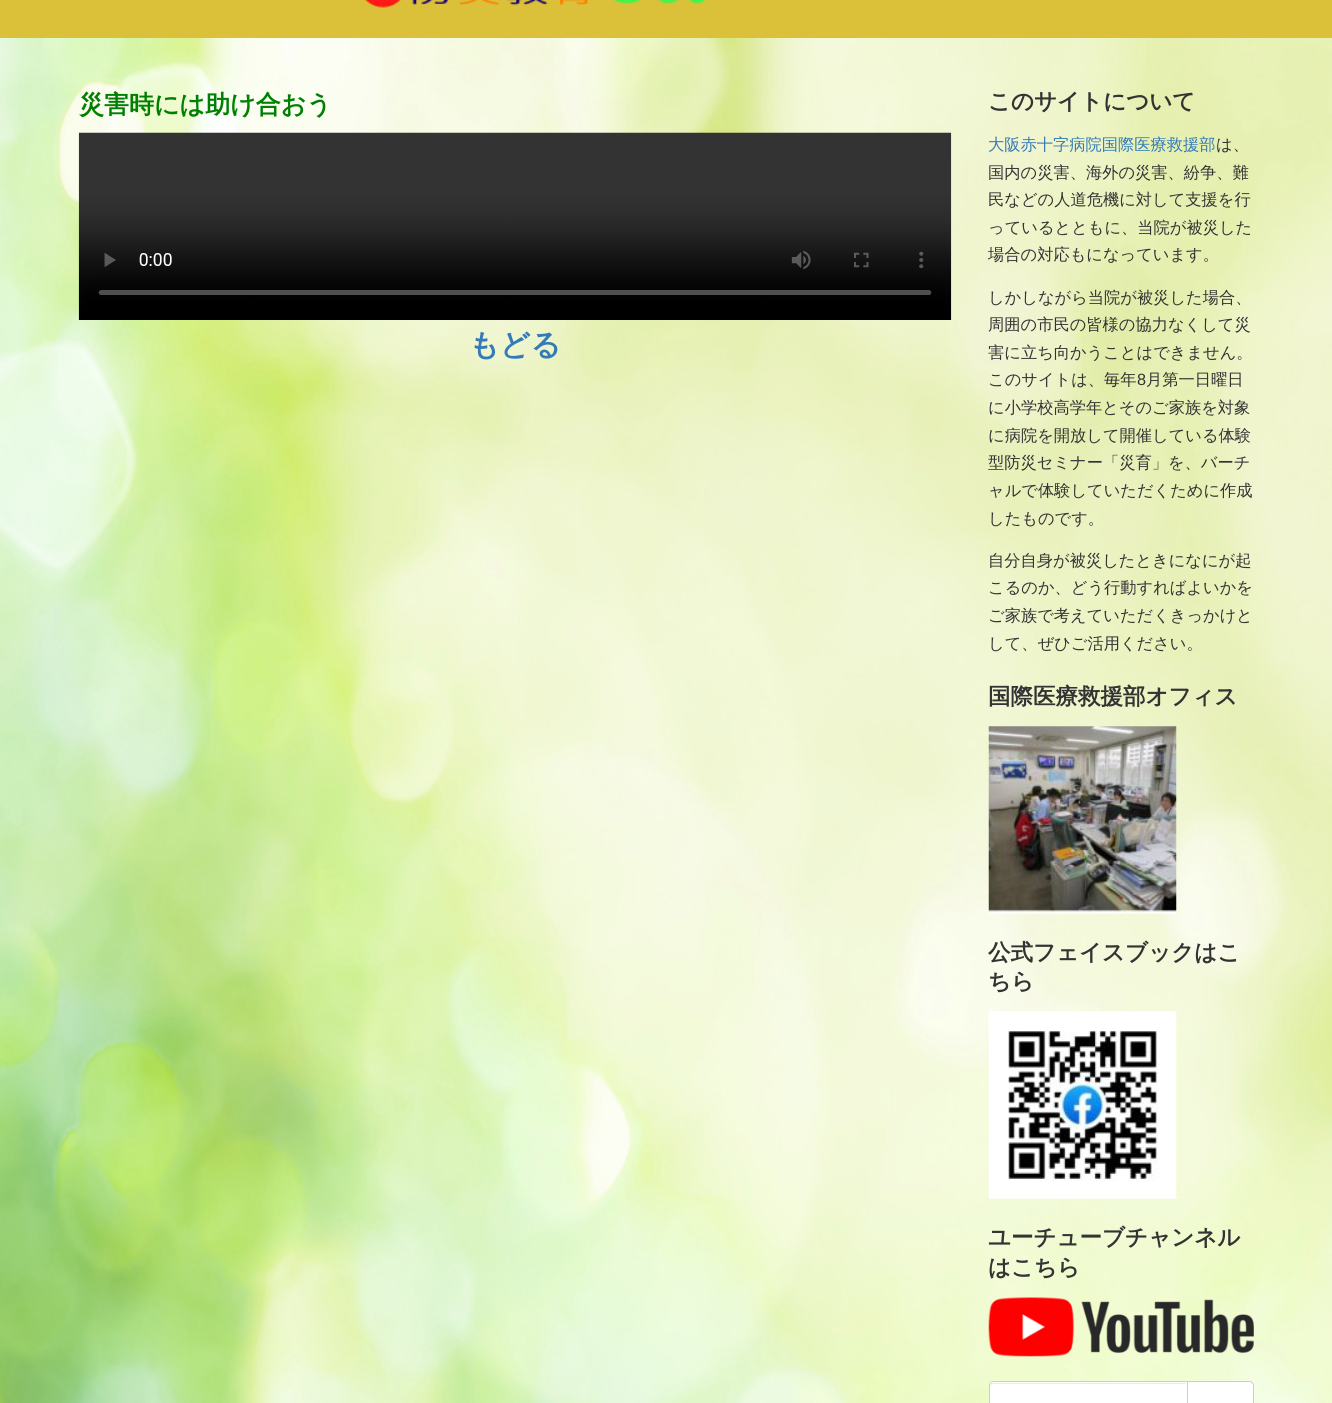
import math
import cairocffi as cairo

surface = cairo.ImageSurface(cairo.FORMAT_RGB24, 1332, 1403)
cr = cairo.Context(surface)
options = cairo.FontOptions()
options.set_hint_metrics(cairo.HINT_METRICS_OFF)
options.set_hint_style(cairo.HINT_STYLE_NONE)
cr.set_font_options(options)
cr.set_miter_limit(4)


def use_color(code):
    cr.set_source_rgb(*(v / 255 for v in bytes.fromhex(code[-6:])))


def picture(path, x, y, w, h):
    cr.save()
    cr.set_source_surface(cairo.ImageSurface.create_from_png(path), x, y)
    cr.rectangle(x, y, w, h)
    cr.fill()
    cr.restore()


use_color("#ffffff")
cr.paint()
picture("img1.png", 0, 38, 1332, 1365)
use_color("#dbc039")
cr.rectangle(0, 0, 1332, 38)
cr.fill()
picture("img2.png", 365, 0, 341, 8)
cr.select_font_face("WenQuanYi Zen Hei", cairo.FONT_SLANT_NORMAL, cairo.FONT_WEIGHT_BOLD)
cr.set_font_size(25)
use_color("#008000")
cr.move_to(79, 113)
cr.show_text("災害時には助け合おう")
picture("img3.png", 78, 132, 874, 188)
cr.set_font_size(30)
use_color("#337ab7")
cr.move_to(469, 355)
cr.show_text("もどる")
cr.set_font_size(22.5)
use_color("#333333")
cr.move_to(988, 109)
cr.show_text("このサイトについて")
cr.select_font_face("WenQuanYi Zen Hei Medium")
cr.set_font_size(16.25)
use_color("#337ab7")
cr.move_to(988, 150)
cr.show_text("大阪赤十字病院国際医療救援部")
use_color("#333333")
cr.move_to(1216, 150)
cr.show_text("は、")
cr.move_to(988, 178)
cr.show_text("国内の災害、海外の災害、紛争、難")
cr.move_to(988, 205)
cr.show_text("民などの人道危機に対して支援を行")
cr.move_to(988, 233)
cr.show_text("っているとともに、当院が被災した")
cr.move_to(988, 260)
cr.show_text("場合の対応もになっています。")
cr.move_to(988, 303)
cr.show_text("しかしながら当院が被災した場合、")
cr.move_to(988, 330)
cr.show_text("周囲の市民の皆様の協力なくして災")
cr.move_to(988, 358)
cr.show_text("害に立ち向かうことはできません。")
cr.move_to(988, 385)
cr.show_text("このサイトは、毎年")
cr.select_font_face("Liberation Sans")
cr.move_to(1137, 385)
cr.show_text("8")
cr.select_font_face("WenQuanYi Zen Hei Medium")
cr.move_to(1146, 385)
cr.show_text("月第一日曜日")
cr.move_to(988, 413)
cr.show_text("に小学校高学年とそのご家族を対象")
cr.move_to(988, 441)
cr.show_text("に病院を開放して開催している体験")
cr.move_to(988, 468)
cr.show_text("型防災セミナー「災育」を、バーチ")
cr.move_to(988, 496)
cr.show_text("ャルで体験していただくために作成")
cr.move_to(988, 524)
cr.show_text("したものです。")
cr.move_to(988, 566)
cr.show_text("自分自身が被災したときになにが起")
cr.move_to(988, 593)
cr.show_text("こるのか、どう行動すればよいかを")
cr.move_to(988, 621)
cr.show_text("ご家族で考えていただくきっかけと")
cr.move_to(988, 649)
cr.show_text("して、ぜひご活用ください。")
cr.select_font_face("WenQuanYi Zen Hei", cairo.FONT_SLANT_NORMAL, cairo.FONT_WEIGHT_BOLD)
cr.set_font_size(22.5)
cr.move_to(988, 704)
cr.show_text("国際医療救援部オフィス")
picture("img4.png", 988, 726, 189, 188)
cr.move_to(988, 960)
cr.show_text("公式フェイスブックはこ")
cr.move_to(988, 989)
cr.show_text("ちら")
picture("img5.png", 988, 1011, 189, 188)
cr.move_to(988, 1245)
cr.show_text("ユーチューブチャンネル")
cr.move_to(988, 1275)
cr.show_text("はこちら")
picture("img6.png", 988, 1297, 266, 60)
use_color("#ffffff")
cr.new_path()
cr.move_to(1186.5, 1381.5)
cr.line_to(1249, 1381.5)
cr.curve_to(1251.5, 1381.5, 1253.5, 1383.5, 1253.5, 1386)
cr.line_to(1253.5, 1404)
cr.curve_to(1253.5, 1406.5, 1251.5, 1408.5, 1249, 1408.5)
cr.line_to(1186.5, 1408.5)
cr.close_path()
cr.fill_preserve()
use_color("#cccccc")
cr.set_line_width(1)
cr.stroke()
use_color("#ffffff")
cr.new_path()
cr.move_to(994, 1381)
cr.line_to(1188, 1381)
cr.line_to(1188, 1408)
cr.line_to(994, 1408)
cr.curve_to(991, 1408, 989, 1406, 989, 1403)
cr.line_to(989, 1386)
cr.curve_to(989, 1383, 991, 1381, 994, 1381)
cr.close_path()
cr.fill()
use_color("#ececec")
cr.new_path()
cr.move_to(994, 1384)
cr.line_to(1186, 1384)
cr.line_to(1186, 1383)
cr.line_to(994, 1383)
cr.curve_to(991, 1383, 990, 1385, 990, 1388)
cr.curve_to(990, 1385, 992, 1384, 994, 1384)
cr.close_path()
cr.fill()
cr.new_path()
cr.move_to(994, 1381.5)
cr.line_to(1187.5, 1381.5)
cr.line_to(1187.5, 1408.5)
cr.line_to(994, 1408.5)
cr.curve_to(991.5, 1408.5, 989.5, 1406.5, 989.5, 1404)
cr.line_to(989.5, 1386)
cr.curve_to(989.5, 1383.5, 991.5, 1381.5, 994, 1381.5)
cr.close_path()
use_color("#cccccc")
cr.stroke()
surface.write_to_png("result.png")
